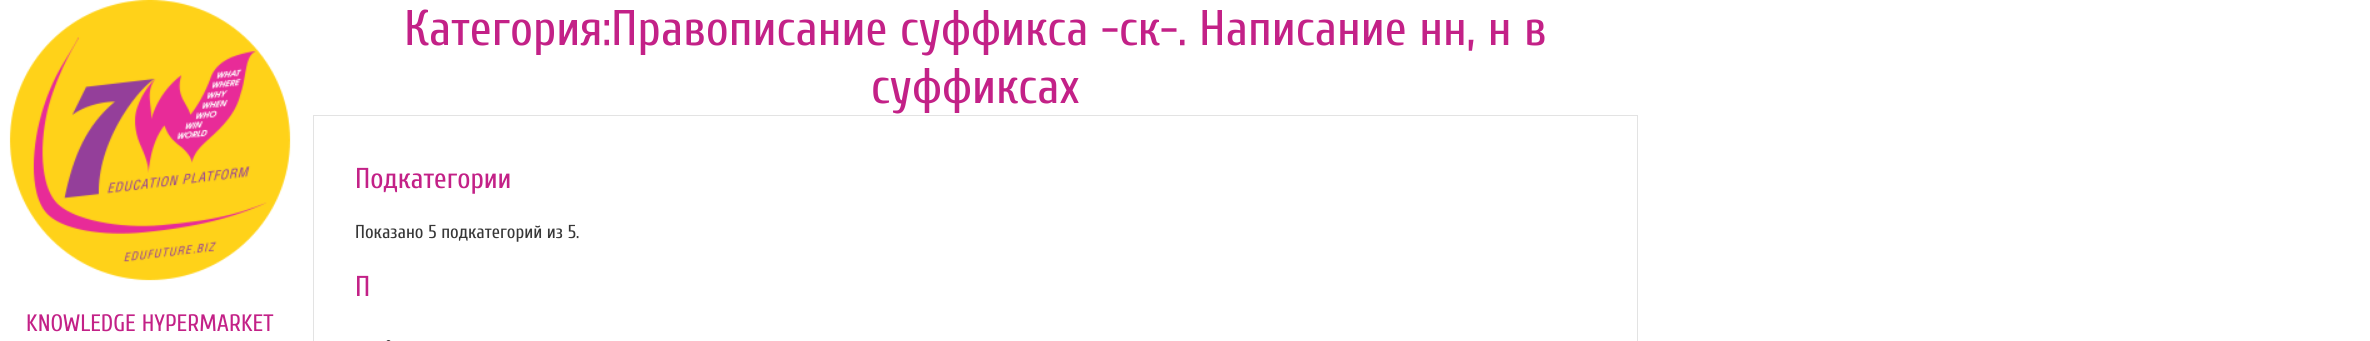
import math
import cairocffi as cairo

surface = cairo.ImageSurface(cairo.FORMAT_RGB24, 2370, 341)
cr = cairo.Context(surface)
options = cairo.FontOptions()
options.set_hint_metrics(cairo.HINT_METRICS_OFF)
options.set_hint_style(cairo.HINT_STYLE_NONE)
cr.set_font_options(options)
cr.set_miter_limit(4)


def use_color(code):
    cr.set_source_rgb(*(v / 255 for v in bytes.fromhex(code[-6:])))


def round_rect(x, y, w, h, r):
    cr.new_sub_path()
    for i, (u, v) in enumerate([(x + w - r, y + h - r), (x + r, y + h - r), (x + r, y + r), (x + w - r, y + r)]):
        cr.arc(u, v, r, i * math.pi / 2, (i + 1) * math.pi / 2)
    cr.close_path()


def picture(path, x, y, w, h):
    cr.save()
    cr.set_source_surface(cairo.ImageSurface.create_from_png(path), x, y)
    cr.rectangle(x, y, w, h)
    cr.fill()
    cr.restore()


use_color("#ffffff")
cr.paint()
cr.select_font_face("Cuprum")
cr.set_font_size(50)
use_color("#c32187")
cr.move_to(404, 45)
cr.show_text("Категория:Правописание суффикса -ск-. Написание нн, н в")
cr.move_to(871, 103)
cr.show_text("суффиксах")
cr.rectangle(313.5, 115.5, 1324, 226)
use_color("#e3e3e3")
cr.set_line_width(1)
cr.stroke()
cr.set_font_size(28.75)
use_color("#c32187")
cr.move_to(355, 188)
cr.show_text("Подкатегории")
cr.set_font_size(18.75)
use_color("#373737")
cr.move_to(355, 238)
cr.show_text("Показано 5 подкатегорий из 5.")
cr.set_font_size(28.75)
use_color("#c32187")
cr.move_to(355, 296)
cr.show_text("П")
use_color("#373737")
round_rect(386, 340, 5, 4, 2.5)
cr.fill()
picture("img1.png", 9, 0, 282, 281)
cr.set_font_size(23.75)
use_color("#c32187")
cr.move_to(26, 331)
cr.show_text("KNOWLEDGE HYPERMARKET")
surface.write_to_png("result.png")
